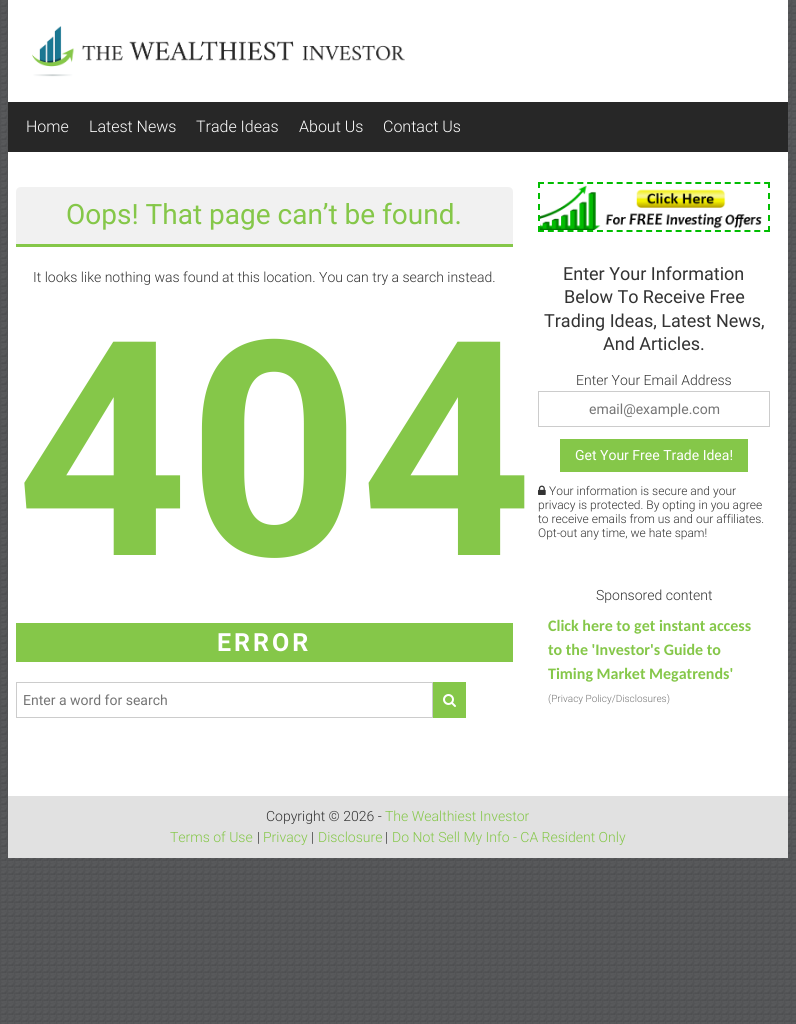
import math
import cairocffi as cairo

surface = cairo.ImageSurface(cairo.FORMAT_RGB24, 796, 1024)
cr = cairo.Context(surface)
options = cairo.FontOptions()
options.set_hint_metrics(cairo.HINT_METRICS_OFF)
options.set_hint_style(cairo.HINT_STYLE_NONE)
cr.set_font_options(options)
cr.set_miter_limit(4)


def use_color(code):
    cr.set_source_rgb(*(v / 255 for v in bytes.fromhex(code[-6:])))


def spaced_text(x, y, s, letter, word):
    cr.move_to(x, y)
    for ch in s:
        cr.show_text(ch)
        cr.rel_move_to(letter + word * (ch == ' '), 0)


def picture(path, x, y, w, h):
    cr.save()
    cr.set_source_surface(cairo.ImageSurface.create_from_png(path), x, y)
    cr.rectangle(x, y, w, h)
    cr.fill()
    cr.restore()


use_color("#ffffff")
cr.paint()
picture("img1.png", 0, 0, 796, 1024)
use_color("#ffffff")
cr.rectangle(8, 0, 780, 796)
cr.fill()
picture("img2.png", 32, 26, 373, 51)
use_color("#272727")
cr.rectangle(8, 102, 780, 50)
cr.fill()
cr.select_font_face("Roboto Light")
cr.set_font_size(16)
use_color("#ffffff")
cr.move_to(26, 132)
cr.show_text("Home")
cr.move_to(89, 132)
cr.show_text("Latest News")
cr.move_to(196, 132)
cr.show_text("Trade Ideas")
cr.move_to(299, 132)
cr.show_text("About Us")
cr.move_to(383, 132)
cr.show_text("Contact Us")
use_color("#f1f1f1")
cr.new_path()
cr.move_to(21, 187)
cr.line_to(508, 187)
cr.curve_to(511, 187, 513, 189, 513, 192)
cr.line_to(513, 247)
cr.line_to(16, 247)
cr.line_to(16, 192)
cr.curve_to(16, 189, 18, 187, 21, 187)
cr.close_path()
cr.fill()
use_color("#85c749")
cr.rectangle(16, 244, 497, 3)
cr.fill()
cr.select_font_face("Roboto")
cr.set_font_size(28)
cr.move_to(66, 224)
cr.show_text("Oops! That page can’t be found.")
cr.select_font_face("Roboto Light")
cr.set_font_size(14)
use_color("#333333")
cr.move_to(33, 282)
cr.show_text("It looks like nothing was found at this location. You can try a search instead.")
cr.select_font_face("Roboto", cairo.FONT_SLANT_NORMAL, cairo.FONT_WEIGHT_BOLD)
cr.set_font_size(300)
use_color("#85c749")
cr.move_to(16, 555)
cr.show_text("404")
cr.rectangle(16, 623, 497, 39)
cr.fill()
cr.set_font_size(25)
use_color("#ffffff")
spaced_text(217, 651, "ERROR", 3, 0)
cr.rectangle(16.5, 682.5, 416, 35)
use_color("#cccccc")
cr.set_line_width(1)
cr.stroke()
cr.select_font_face("Roboto")
cr.set_font_size(14)
use_color("#757575")
cr.move_to(23, 705)
cr.show_text("Enter a word for search")
use_color("#85c749")
cr.rectangle(433, 682, 33, 36)
cr.fill()
picture("img3.png", 443, 694, 13, 13)
cr.new_path()
cr.move_to(538, 183)
cr.line_to(770, 183)
use_color("#01bd01")
cr.set_line_width(2)
cr.set_dash([6, 3.83])
cr.stroke()
cr.new_path()
cr.move_to(769, 182)
cr.line_to(769, 232)
cr.set_dash([6, 5])
cr.stroke()
cr.new_path()
cr.move_to(538, 231)
cr.line_to(770, 231)
cr.set_dash([6, 3.83])
cr.stroke()
cr.new_path()
cr.move_to(539, 182)
cr.line_to(539, 232)
cr.set_dash([6, 5])
cr.stroke()
picture("img4.png", 540, 185, 222, 45)
cr.set_font_size(18)
use_color("#333333")
cr.move_to(563, 280)
cr.show_text("Enter Your Information")
cr.move_to(564, 303)
cr.show_text("Below To Receive Free")
cr.move_to(544, 327)
cr.show_text("Trading Ideas, Latest News,")
cr.move_to(603, 350)
cr.show_text("And Articles.")
cr.select_font_face("Roboto Light")
cr.set_font_size(14)
cr.move_to(576, 385)
cr.show_text("Enter Your Email Address")
cr.rectangle(538.5, 391.5, 231, 35)
use_color("#cccccc")
cr.set_line_width(1)
cr.set_dash([])
cr.stroke()
cr.select_font_face("Roboto")
use_color("#757575")
cr.move_to(589, 414)
cr.show_text("email@example.com")
use_color("#85c749")
cr.rectangle(560, 439, 188, 33)
cr.fill()
use_color("#ffffff")
cr.move_to(575, 460)
cr.show_text("Get Your Free Trade Idea!")
picture("img5.png", 538, 485, 8, 10)
cr.select_font_face("Roboto Light")
cr.set_font_size(12)
use_color("#333333")
cr.move_to(549, 495)
cr.show_text("Your information is secure and your")
cr.move_to(538, 509)
cr.show_text("privacy is protected. By opting in you agree")
cr.move_to(538, 523)
cr.show_text("to receive emails from us and our affiliates.")
cr.move_to(538, 537)
cr.show_text("Opt-out any time, we hate spam!")
cr.set_font_size(14)
cr.move_to(596, 600)
cr.show_text("Sponsored content")
cr.select_font_face("Carlito", cairo.FONT_SLANT_NORMAL, cairo.FONT_WEIGHT_BOLD)
cr.set_font_size(16)
use_color("#85c749")
cr.move_to(548, 631)
cr.show_text("Click here to get instant access")
cr.move_to(548, 655)
cr.show_text("to the 'Investor's Guide to")
cr.move_to(548, 679)
cr.show_text("Timing Market Megatrends'")
cr.select_font_face("Roboto Light")
cr.set_font_size(10)
use_color("#757575")
cr.move_to(548, 702)
cr.show_text("(Privacy Policy/Disclosures)")
use_color("#e1e1e1")
cr.rectangle(8, 796, 780, 62)
cr.fill()
cr.set_font_size(14)
use_color("#333333")
cr.move_to(266, 821)
cr.show_text("Copyright © 2026 -")
use_color("#85c749")
cr.move_to(385, 821)
cr.show_text("The Wealthiest Investor")
cr.move_to(170, 842)
cr.show_text("Terms of Use")
use_color("#333333")
cr.move_to(257, 842)
cr.show_text("|")
use_color("#85c749")
cr.move_to(263, 842)
cr.show_text("Privacy")
use_color("#333333")
cr.move_to(311, 842)
cr.show_text("|")
use_color("#85c749")
cr.move_to(318, 842)
cr.show_text("Disclosure")
use_color("#333333")
cr.move_to(385, 842)
cr.show_text("|")
use_color("#85c749")
cr.move_to(392, 842)
cr.show_text("Do Not Sell My Info - CA Resident Only")
surface.write_to_png("result.png")
